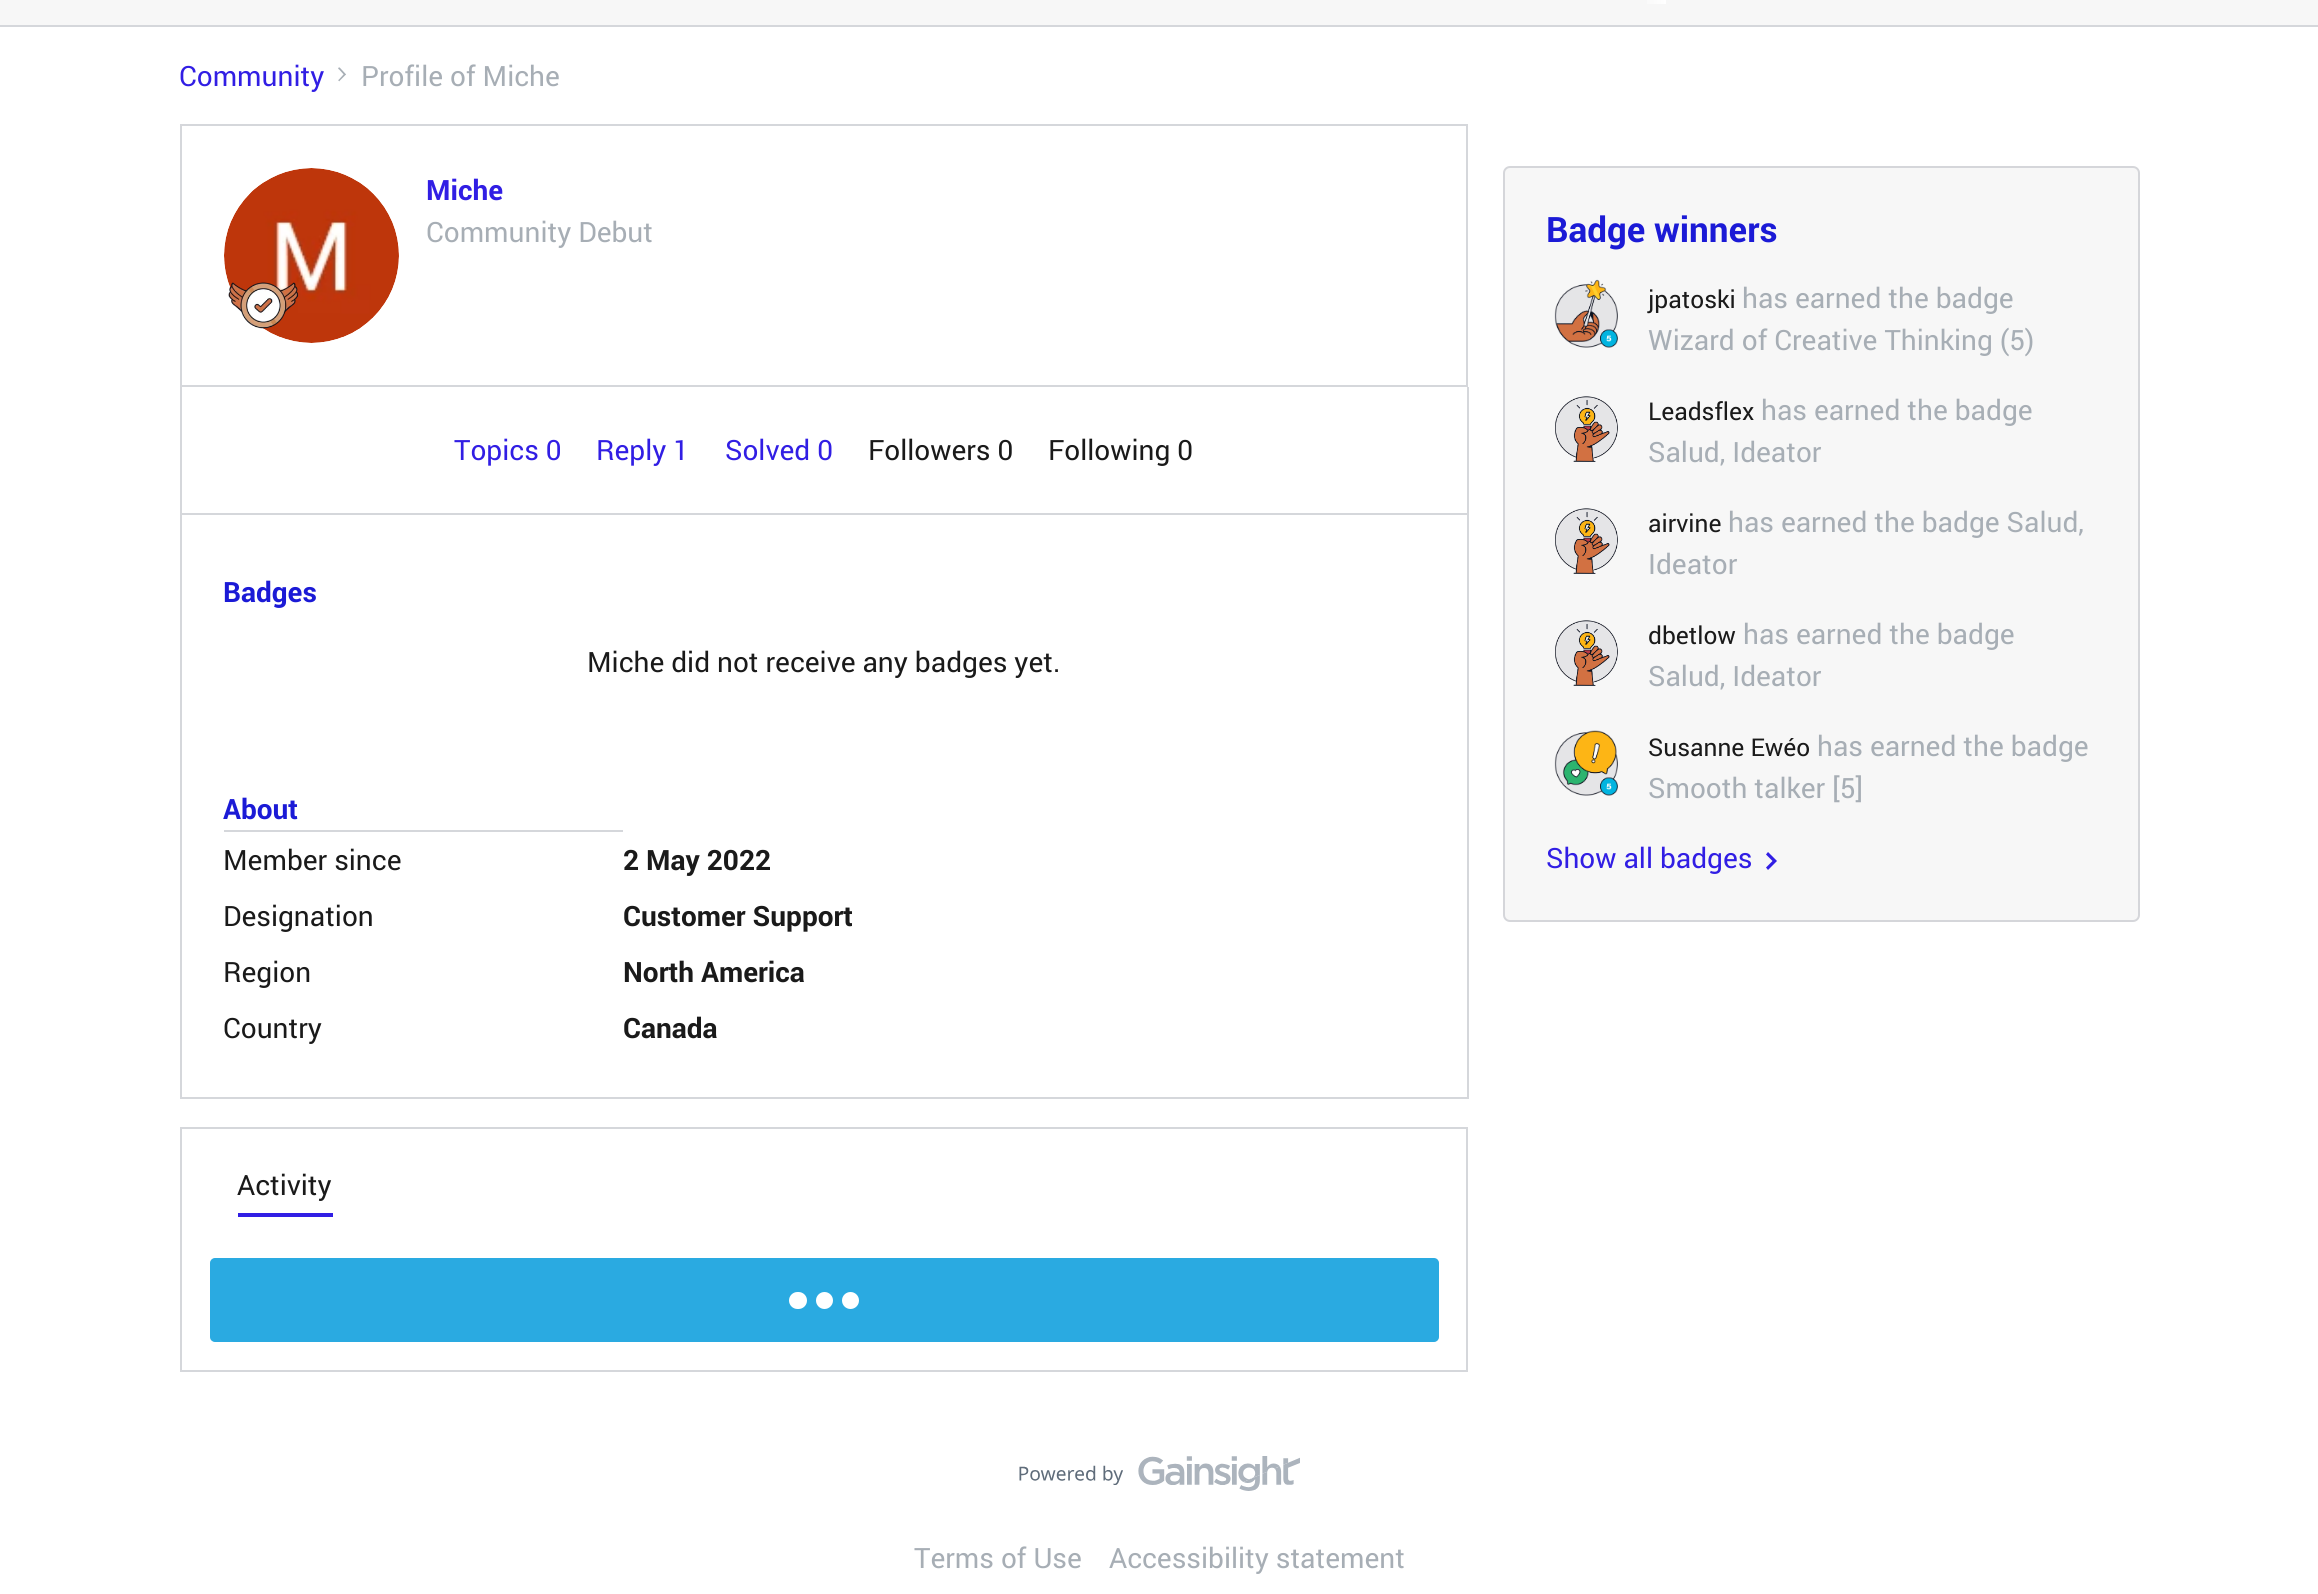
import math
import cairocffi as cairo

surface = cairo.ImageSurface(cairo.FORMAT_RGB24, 2318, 1594)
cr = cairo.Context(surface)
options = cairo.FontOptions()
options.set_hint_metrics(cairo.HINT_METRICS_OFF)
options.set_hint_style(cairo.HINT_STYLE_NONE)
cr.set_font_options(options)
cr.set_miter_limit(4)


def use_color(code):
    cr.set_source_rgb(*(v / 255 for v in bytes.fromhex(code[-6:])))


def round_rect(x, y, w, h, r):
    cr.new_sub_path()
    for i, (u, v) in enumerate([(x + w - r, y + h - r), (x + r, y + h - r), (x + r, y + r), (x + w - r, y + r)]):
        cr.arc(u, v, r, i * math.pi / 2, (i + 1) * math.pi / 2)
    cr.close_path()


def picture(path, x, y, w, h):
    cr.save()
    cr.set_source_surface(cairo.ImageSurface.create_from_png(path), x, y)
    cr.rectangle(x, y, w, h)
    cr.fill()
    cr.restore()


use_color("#ffffff")
cr.paint()
use_color("#f7f7f7")
cr.rectangle(0, 0, 2318, 25)
cr.fill()
use_color("#d5d7db")
cr.rectangle(0, 25, 2318, 2)
cr.fill()
gradient = cairo.LinearGradient(1638, -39, 1666, -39)
gradient.add_color_stop_rgba(0, 0.969, 0.969, 0.969, 1)
gradient.add_color_stop_rgba(1, 1, 1, 1, 1)
cr.set_source(gradient)
cr.rectangle(1647, 0, 19, 4)
cr.fill()
cr.select_font_face("Roboto")
cr.set_font_size(28)
use_color("#311ee4")
cr.move_to(179, 86)
cr.show_text("Community")
picture("img1.png", 338, 67, 8, 15)
use_color("#a7aeb5")
cr.move_to(361, 86)
cr.show_text("Profile of Miche")
cr.rectangle(181, 125, 1286, 261)
use_color("#d5d7db")
cr.stroke()
picture("img2.png", 224, 168, 175, 175)
picture("img3.png", 228, 282, 71, 47)
cr.select_font_face("Roboto", cairo.FONT_SLANT_NORMAL, cairo.FONT_WEIGHT_BOLD)
use_color("#311ee4")
cr.move_to(426, 200)
cr.show_text("Miche")
cr.select_font_face("Roboto")
use_color("#a7aeb5")
cr.move_to(426, 242)
cr.show_text("Community Debut")
use_color("#d5d7db")
cr.rectangle(1467, 387, 2, 712)
cr.fill()
cr.rectangle(180, 513, 1288, 2)
cr.fill()
cr.rectangle(180, 387, 2, 128)
cr.fill()
use_color("#311ee4")
cr.move_to(454, 460)
cr.show_text("Topics 0")
cr.move_to(596, 460)
cr.show_text("Reply 1")
cr.move_to(725, 460)
cr.show_text("Solved 0")
use_color("#1a1a1a")
cr.move_to(868, 460)
cr.show_text("Followers 0")
cr.move_to(1048, 460)
cr.show_text("Following 0")
use_color("#d5d7db")
cr.rectangle(180, 515, 2, 224)
cr.fill()
cr.select_font_face("Roboto", cairo.FONT_SLANT_NORMAL, cairo.FONT_WEIGHT_BOLD)
use_color("#1b1ad6")
cr.move_to(223, 602)
cr.show_text("Badges")
cr.select_font_face("Roboto")
use_color("#1a1a1a")
cr.move_to(587, 672)
cr.show_text("Miche did not receive any badges yet.")
use_color("#d5d7db")
cr.rectangle(180, 1097, 1288, 2)
cr.fill()
cr.rectangle(180, 739, 2, 360)
cr.fill()
cr.rectangle(224, 830, 399, 2)
cr.fill()
cr.select_font_face("Roboto", cairo.FONT_SLANT_NORMAL, cairo.FONT_WEIGHT_BOLD)
use_color("#1b1ad6")
cr.move_to(223, 819)
cr.show_text("About")
cr.select_font_face("Roboto")
use_color("#1a1a1a")
cr.move_to(223, 870)
cr.show_text("Member since")
cr.select_font_face("Roboto", cairo.FONT_SLANT_NORMAL, cairo.FONT_WEIGHT_BOLD)
cr.move_to(623, 870)
cr.show_text("2 May 2022")
cr.select_font_face("Roboto")
cr.move_to(223, 926)
cr.show_text("Designation")
cr.select_font_face("Roboto", cairo.FONT_SLANT_NORMAL, cairo.FONT_WEIGHT_BOLD)
cr.move_to(623, 926)
cr.show_text("Customer Support")
cr.select_font_face("Roboto")
cr.move_to(223, 982)
cr.show_text("Region")
cr.select_font_face("Roboto", cairo.FONT_SLANT_NORMAL, cairo.FONT_WEIGHT_BOLD)
cr.move_to(623, 982)
cr.show_text("North America")
cr.select_font_face("Roboto")
cr.move_to(223, 1038)
cr.show_text("Country")
cr.select_font_face("Roboto", cairo.FONT_SLANT_NORMAL, cairo.FONT_WEIGHT_BOLD)
cr.move_to(623, 1038)
cr.show_text("Canada")
cr.rectangle(181, 1128, 1286, 243)
use_color("#d5d7db")
cr.stroke()
use_color("#311ee4")
cr.rectangle(238, 1213, 95, 4)
cr.fill()
cr.select_font_face("Roboto")
use_color("#1a1a1a")
cr.move_to(237, 1195)
cr.show_text("Activity")
use_color("#2aaae1")
round_rect(211, 1259, 1227, 82, 4)
cr.fill_preserve()
cr.stroke()
use_color("#ffffff")
cr.arc(824.5, 1300.5, 8.5, 0, 2 * math.pi)
cr.fill()
round_rect(789, 1292, 18, 17, 8.5)
cr.fill()
cr.arc(850.5, 1300.5, 8.5, 0, 2 * math.pi)
cr.fill()
use_color("#f7f7f7")
round_rect(1504, 167, 635, 754, 6)
cr.fill_preserve()
use_color("#d5d6da")
cr.stroke()
cr.select_font_face("Roboto", cairo.FONT_SLANT_NORMAL, cairo.FONT_WEIGHT_BOLD)
cr.set_font_size(35)
use_color("#1b1ad6")
cr.move_to(1546, 242)
cr.show_text("Badge winners")
picture("img4.png", 1554, 279, 64, 69)
cr.select_font_face("Roboto")
cr.set_font_size(24.5)
use_color("#1a1a1a")
cr.move_to(1648, 308)
cr.show_text("jpatoski")
cr.set_font_size(28)
use_color("#a7aeb5")
cr.move_to(1742, 308)
cr.show_text("has earned the badge")
cr.move_to(1648, 350)
cr.show_text("Wizard of Creative Thinking (5)")
picture("img5.png", 1555, 396, 63, 66)
cr.set_font_size(24.5)
use_color("#1a1a1a")
cr.move_to(1648, 420)
cr.show_text("Leadsflex")
cr.set_font_size(28)
use_color("#a7aeb5")
cr.move_to(1761, 420)
cr.show_text("has earned the badge")
cr.move_to(1648, 462)
cr.show_text("Salud, Ideator")
picture("img5.png", 1555, 508, 63, 66)
cr.set_font_size(24.5)
use_color("#1a1a1a")
cr.move_to(1648, 532)
cr.show_text("airvine")
cr.set_font_size(28)
use_color("#a7aeb5")
cr.move_to(1728, 532)
cr.show_text("has earned the badge Salud,")
cr.move_to(1648, 574)
cr.show_text("Ideator")
picture("img5.png", 1555, 620, 63, 66)
cr.set_font_size(24.5)
use_color("#1a1a1a")
cr.move_to(1648, 644)
cr.show_text("dbetlow")
cr.set_font_size(28)
use_color("#a7aeb5")
cr.move_to(1743, 644)
cr.show_text("has earned the badge")
cr.move_to(1648, 686)
cr.show_text("Salud, Ideator")
picture("img6.png", 1554, 730, 64, 66)
cr.set_font_size(24.5)
use_color("#1a1a1a")
cr.move_to(1648, 756)
cr.show_text("Susanne Ewéo")
cr.set_font_size(28)
use_color("#a7aeb5")
cr.move_to(1817, 756)
cr.show_text("has earned the badge")
cr.move_to(1648, 798)
cr.show_text("Smooth talker [5]")
use_color("#311ee4")
cr.move_to(1546, 868)
cr.show_text("Show all badges")
cr.new_path()
cr.move_to(1768, 852)
cr.line_to(1766, 854.5)
cr.line_to(1772.5, 861)
cr.line_to(1766, 867.5)
cr.line_to(1768, 870)
cr.line_to(1777, 861)
cr.close_path()
cr.fill()
picture("img7.png", 1019, 1456, 281, 35)
use_color("#a7aeb5")
cr.move_to(914, 1568)
cr.show_text("Terms of Use")
cr.move_to(1109, 1568)
cr.show_text("Accessibility statement")
surface.write_to_png("result.png")
